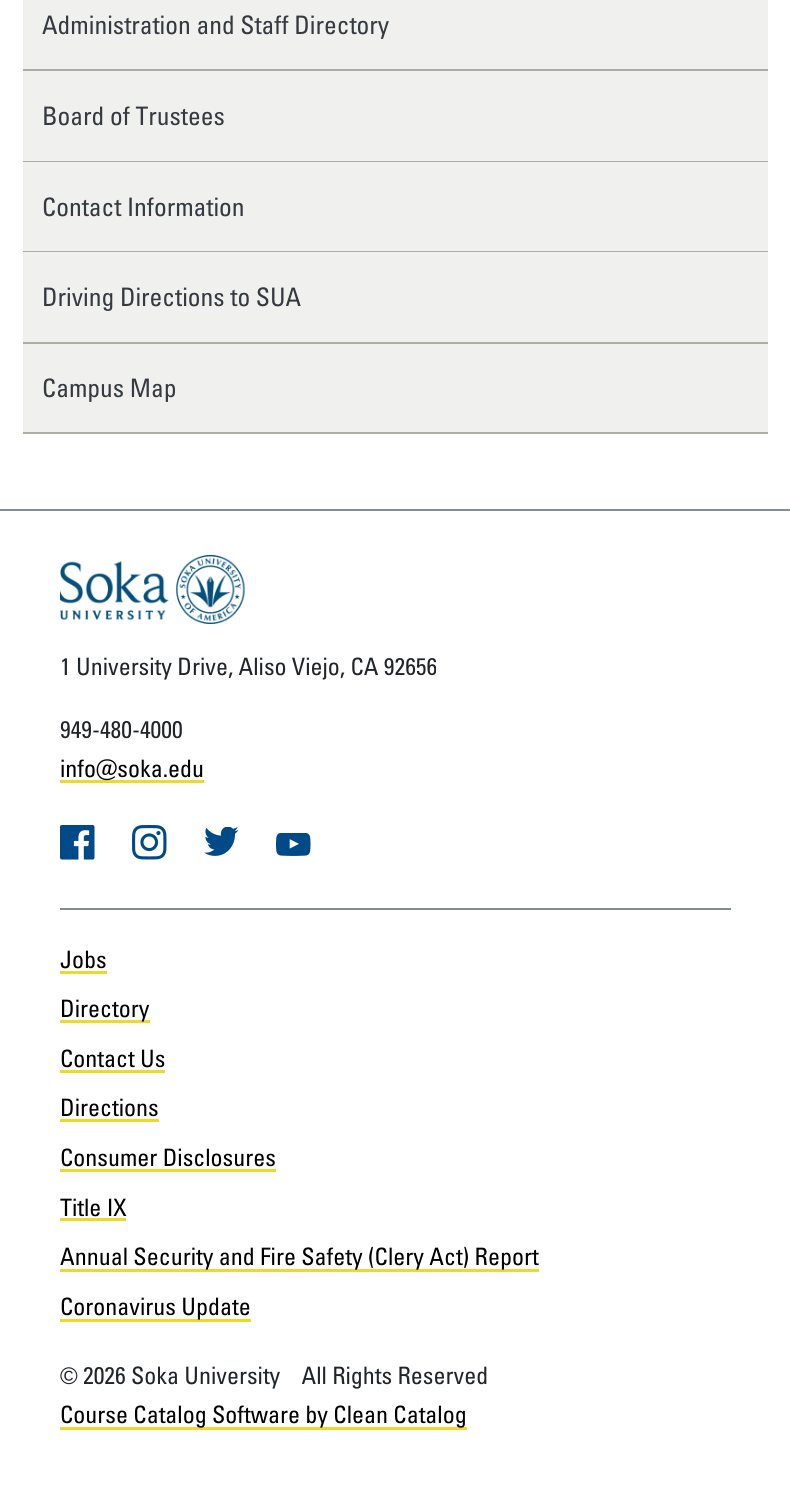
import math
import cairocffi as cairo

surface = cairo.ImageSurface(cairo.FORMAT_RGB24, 790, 1502)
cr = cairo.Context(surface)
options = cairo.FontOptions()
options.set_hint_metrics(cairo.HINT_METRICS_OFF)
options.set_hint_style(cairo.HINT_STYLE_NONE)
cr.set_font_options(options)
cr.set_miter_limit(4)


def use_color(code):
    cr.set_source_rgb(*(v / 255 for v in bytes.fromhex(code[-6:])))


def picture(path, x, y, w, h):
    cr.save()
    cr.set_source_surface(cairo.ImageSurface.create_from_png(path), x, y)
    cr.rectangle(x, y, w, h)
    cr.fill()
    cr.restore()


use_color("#ffffff")
cr.paint()
use_color("#f0f0ef")
cr.rectangle(23, 0, 745, 69)
cr.fill()
use_color("#adada4")
cr.rectangle(23, 69, 745, 2)
cr.fill()
cr.select_font_face("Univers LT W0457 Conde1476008")
cr.set_font_size(25.5)
use_color("#343a40")
cr.move_to(42, 34)
cr.show_text("Administration and Staff Directory")
use_color("#f0f0ef")
cr.rectangle(23, 71, 745, 90)
cr.fill()
use_color("#adada4")
cr.rectangle(23, 161, 745, 1)
cr.fill()
use_color("#343a40")
cr.move_to(42, 125)
cr.show_text("Board of Trustees")
use_color("#f0f0ef")
cr.rectangle(23, 162, 745, 89)
cr.fill()
use_color("#adada4")
cr.rectangle(23, 251, 745, 1)
cr.fill()
use_color("#343a40")
cr.move_to(42, 216)
cr.show_text("Contact Information")
use_color("#f0f0ef")
cr.rectangle(23, 252, 745, 90)
cr.fill()
use_color("#adada4")
cr.rectangle(23, 342, 745, 2)
cr.fill()
use_color("#343a40")
cr.move_to(42, 306)
cr.show_text("Driving Directions to SUA")
use_color("#f0f0ef")
cr.rectangle(23, 344, 745, 88)
cr.fill()
use_color("#adada4")
cr.rectangle(23, 432, 745, 2)
cr.fill()
use_color("#343a40")
cr.move_to(42, 397)
cr.show_text("Campus Map")
use_color("#818d94")
cr.rectangle(0, 509, 790, 2)
cr.fill()
picture("img1.png", 60, 555, 185, 69)
cr.set_font_size(24)
use_color("#212529")
cr.move_to(60, 675)
cr.show_text("1 University Drive, Aliso Viejo, CA 92656")
cr.move_to(60, 738)
cr.show_text("949-480-4000")
use_color("#edda26")
cr.rectangle(60, 780, 144, 3)
cr.fill()
use_color("#000000")
cr.move_to(60, 777)
cr.show_text("info@soka.edu")
use_color("#818d94")
cr.rectangle(60, 908, 671, 2)
cr.fill()
picture("img2.png", 60, 825, 35, 35)
picture("img3.png", 132, 825, 35, 35)
picture("img4.png", 204, 827, 35, 29)
picture("img5.png", 276, 833, 35, 23)
use_color("#000000")
cr.move_to(60, 968)
cr.show_text("Jobs")
use_color("#edda26")
cr.rectangle(60, 971, 47, 3)
cr.fill()
cr.rectangle(60, 1020, 90, 3)
cr.fill()
use_color("#000000")
cr.move_to(60, 1017)
cr.show_text("Directory")
cr.move_to(60, 1067)
cr.show_text("Contact Us")
use_color("#edda26")
cr.rectangle(60, 1070, 105, 3)
cr.fill()
use_color("#000000")
cr.move_to(60, 1116)
cr.show_text("Directions")
use_color("#edda26")
cr.rectangle(60, 1119, 99, 3)
cr.fill()
use_color("#000000")
cr.move_to(60, 1166)
cr.show_text("Consumer Disclosures")
use_color("#edda26")
cr.rectangle(60, 1169, 216, 3)
cr.fill()
use_color("#000000")
cr.move_to(60, 1216)
cr.show_text("Title IX")
use_color("#edda26")
cr.rectangle(60, 1218, 66, 3)
cr.fill()
cr.rectangle(60, 1269, 479, 3)
cr.fill()
use_color("#000000")
cr.move_to(60, 1265)
cr.show_text("Annual Security and Fire Safety (Clery Act) Report")
use_color("#edda26")
cr.rectangle(60, 1319, 191, 3)
cr.fill()
use_color("#000000")
cr.move_to(60, 1315)
cr.show_text("Coronavirus Update")
cr.select_font_face("Liberation Sans")
use_color("#212529")
cr.move_to(60, 1384)
cr.show_text("©")
cr.select_font_face("Univers LT W0457 Conde1476008")
cr.move_to(83, 1384)
cr.show_text("2026 Soka University    All Rights Reserved")
use_color("#edda26")
cr.rectangle(60, 1427, 407, 3)
cr.fill()
use_color("#000000")
cr.move_to(60, 1423)
cr.show_text("Course Catalog Software by Clean Catalog")
surface.write_to_png("result.png")
